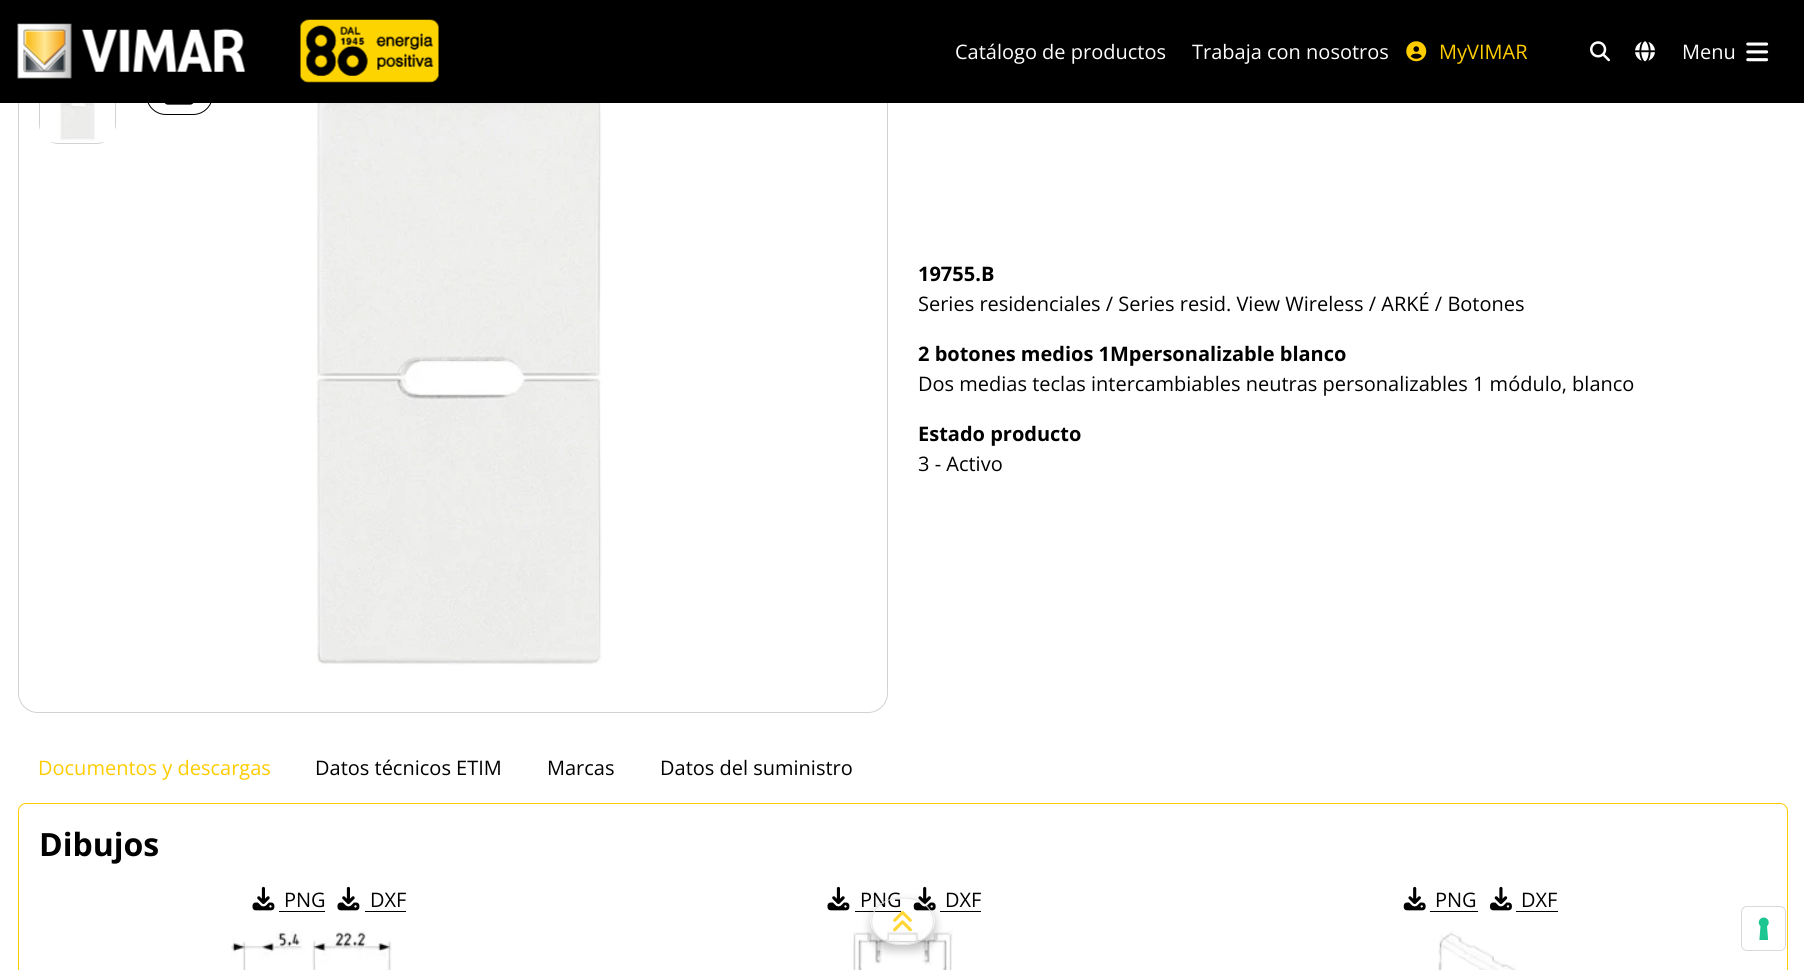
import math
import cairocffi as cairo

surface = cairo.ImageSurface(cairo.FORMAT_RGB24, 1804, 970)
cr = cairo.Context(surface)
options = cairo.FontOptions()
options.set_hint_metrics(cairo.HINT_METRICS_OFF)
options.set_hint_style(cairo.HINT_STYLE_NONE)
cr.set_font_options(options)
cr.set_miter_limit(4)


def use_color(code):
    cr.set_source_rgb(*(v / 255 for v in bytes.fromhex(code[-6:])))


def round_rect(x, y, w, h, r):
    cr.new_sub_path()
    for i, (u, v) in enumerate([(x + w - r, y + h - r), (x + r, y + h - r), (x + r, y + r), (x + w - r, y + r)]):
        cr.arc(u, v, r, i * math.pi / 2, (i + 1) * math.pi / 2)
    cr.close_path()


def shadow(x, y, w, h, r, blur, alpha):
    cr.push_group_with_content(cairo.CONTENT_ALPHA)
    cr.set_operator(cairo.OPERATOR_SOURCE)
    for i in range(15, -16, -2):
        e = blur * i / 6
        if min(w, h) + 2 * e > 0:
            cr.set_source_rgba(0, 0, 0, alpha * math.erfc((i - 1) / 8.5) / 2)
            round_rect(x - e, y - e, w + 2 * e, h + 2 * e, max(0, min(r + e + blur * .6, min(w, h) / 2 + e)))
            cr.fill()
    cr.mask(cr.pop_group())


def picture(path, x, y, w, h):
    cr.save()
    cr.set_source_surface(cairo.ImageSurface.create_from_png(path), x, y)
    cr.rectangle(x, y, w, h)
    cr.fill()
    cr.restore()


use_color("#ffffff")
cr.paint()
round_rect(18.5, 45.5, 869, 667, 19.5)
use_color("#d2d2d2")
cr.set_line_width(1)
cr.stroke()
round_rect(39.5, 66.5, 76, 77, 19.5)
cr.stroke()
round_rect(146.5, 66.5, 66, 48, 19.5)
use_color("#000000")
cr.stroke()
cr.rectangle(0, 0, 1804, 103)
cr.fill()
picture("img1.png", 17, 23, 229, 57)
picture("img2.png", 300, 19, 139, 64)
cr.select_font_face("Open Sans")
cr.set_font_size(20)
use_color("#ffffff")
cr.move_to(955, 59)
cr.show_text("Catálogo de productos")
cr.move_to(1192, 59)
cr.show_text("Trabaja con nosotros")
picture("img3.png", 1406, 41, 21, 21)
use_color("#ffcc00")
cr.move_to(1439, 59)
cr.show_text("MyVIMAR")
picture("img4.png", 1590, 41, 20, 21)
picture("img5.png", 1635, 41, 20, 21)
use_color("#ffffff")
cr.move_to(1682, 59)
cr.show_text("Menu")
picture("img6.png", 1746, 42, 23, 20)
picture("img7.png", 40, 103, 75, 40)
picture("img8.png", 164, 103, 30, 2)
picture("img9.png", 316, 103, 286, 563)
cr.select_font_face("Open Sans", cairo.FONT_SLANT_NORMAL, cairo.FONT_WEIGHT_BOLD)
use_color("#000000")
cr.move_to(918, 281)
cr.show_text("19755.B")
cr.select_font_face("Open Sans")
cr.move_to(918, 311)
cr.show_text("Series residenciales / Series resid. View Wireless / ARKÉ / Botones")
cr.select_font_face("Open Sans", cairo.FONT_SLANT_NORMAL, cairo.FONT_WEIGHT_BOLD)
cr.move_to(918, 361)
cr.show_text("2 botones medios 1Mpersonalizable blanco")
cr.select_font_face("Open Sans")
cr.move_to(918, 391)
cr.show_text("Dos medias teclas intercambiables neutras personalizables 1 módulo, blanco")
cr.select_font_face("Open Sans", cairo.FONT_SLANT_NORMAL, cairo.FONT_WEIGHT_BOLD)
cr.move_to(918, 441)
cr.show_text("Estado producto")
cr.select_font_face("Open Sans")
cr.move_to(918, 471)
cr.show_text("3 - Activo")
use_color("#ffcc00")
cr.move_to(38, 775)
cr.show_text("Documentos y descargas")
use_color("#000000")
cr.move_to(315, 775)
cr.show_text("Datos técnicos ETIM")
cr.move_to(547, 775)
cr.show_text("Marcas")
cr.move_to(660, 775)
cr.show_text("Datos del suministro")
round_rect(18.5, 803.5, 1769, 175, 7.5)
use_color("#ffcc00")
cr.stroke()
cr.select_font_face("Open Sans", cairo.FONT_SLANT_NORMAL, cairo.FONT_WEIGHT_BOLD)
cr.set_font_size(32)
use_color("#000000")
cr.move_to(39, 856)
cr.show_text("Dibujos")
picture("img10.png", 252, 886, 23, 25)
cr.select_font_face("Open Sans")
cr.set_font_size(20)
cr.move_to(284, 907)
cr.show_text("PNG")
cr.rectangle(279, 911, 46, 1)
cr.fill()
picture("img10.png", 337, 886, 23, 25)
cr.move_to(370, 907)
cr.show_text("DXF")
cr.rectangle(365, 911, 41, 1)
cr.fill()
picture("img11.png", 231, 930, 161, 40)
picture("img10.png", 827, 886, 23, 25)
cr.move_to(860, 907)
cr.show_text("PNG")
cr.rectangle(855, 911, 46, 1)
cr.fill()
picture("img12.png", 913, 886, 23, 25)
cr.move_to(945, 907)
cr.show_text("DXF")
cr.rectangle(940, 911, 41, 1)
cr.fill()
picture("img13.png", 853, 930, 100, 40)
picture("img12.png", 1403, 886, 23, 25)
cr.move_to(1435, 907)
cr.show_text("PNG")
cr.rectangle(1430, 911, 48, 1)
cr.fill()
picture("img14.png", 1490, 886, 22, 25)
cr.move_to(1521, 907)
cr.show_text("DXF")
cr.rectangle(1516, 911, 42, 1)
cr.fill()
picture("img15.png", 1438, 931, 78, 39)
cr.save()
cr.set_fill_rule(cairo.FILL_RULE_EVEN_ODD)
cr.new_path()
cr.move_to(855, 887)
cr.line_to(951, 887)
cr.line_to(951, 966)
cr.line_to(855, 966)
cr.close_path()
cr.move_to(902.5, 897.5)
cr.curve_to(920, 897.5, 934.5, 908, 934.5, 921)
cr.curve_to(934.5, 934.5, 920, 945, 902.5, 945)
cr.curve_to(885, 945, 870.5, 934.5, 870.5, 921)
cr.curve_to(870.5, 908, 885, 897.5, 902.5, 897.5)
cr.close_path()
cr.clip()
use_color("#000000")
shadow(871, 903, 64, 47, 23.5, 5, 0.24)
cr.restore()
cr.new_path()
cr.move_to(902.5, 898)
cr.curve_to(943.5, 898, 943.5, 944.5, 902.5, 944.5)
cr.curve_to(861.5, 944.5, 861.5, 898, 902.5, 898)
cr.close_path()
cr.set_source_rgba(0.871, 0.886, 0.902, 0.8)
cr.set_line_width(1.2)
cr.stroke()
picture("img16.png", 893, 911, 19, 21)
round_rect(1741.5, 906.5, 44, 44, 5.5)
use_color("#d9d9d9")
cr.set_line_width(1)
cr.stroke()
use_color("#ffffff")
round_rect(1743, 908, 42, 42, 5)
cr.fill()
picture("img17.png", 1758, 917, 11, 23)
surface.write_to_png("result.png")
